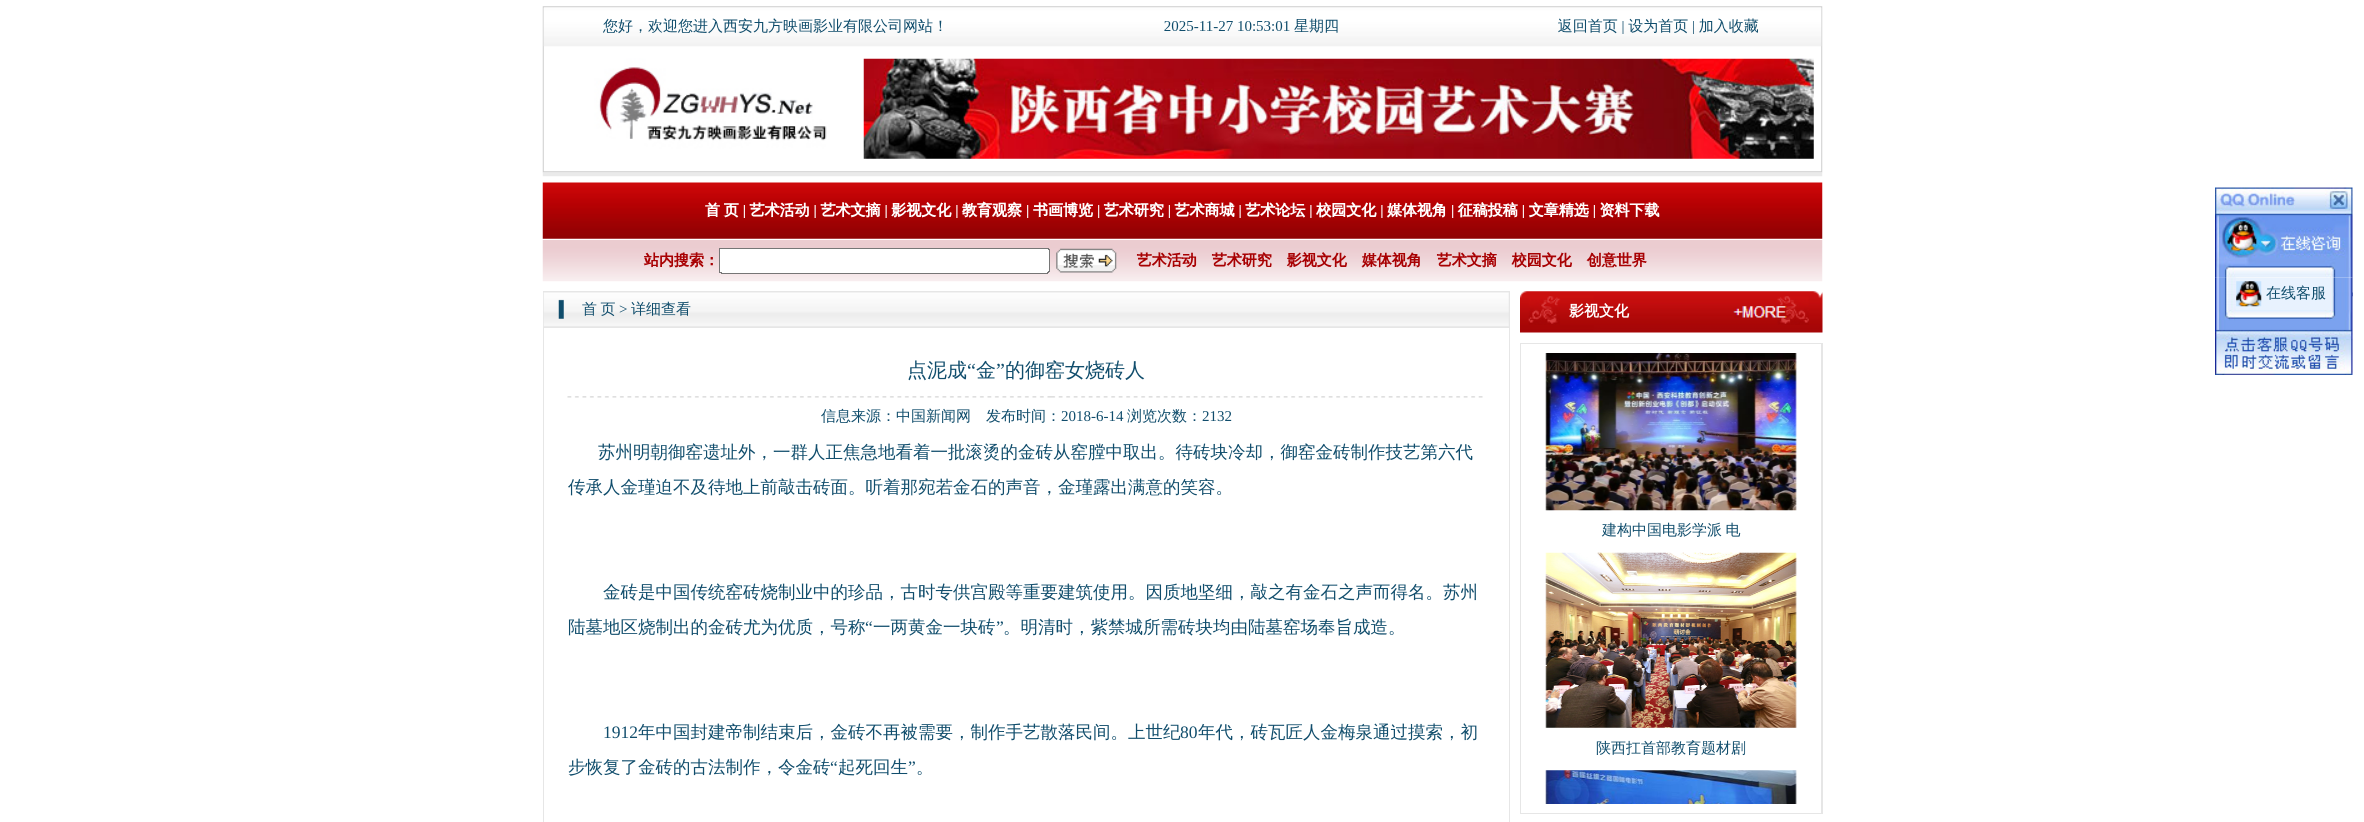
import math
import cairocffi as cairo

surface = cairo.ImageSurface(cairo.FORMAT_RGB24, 2364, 822)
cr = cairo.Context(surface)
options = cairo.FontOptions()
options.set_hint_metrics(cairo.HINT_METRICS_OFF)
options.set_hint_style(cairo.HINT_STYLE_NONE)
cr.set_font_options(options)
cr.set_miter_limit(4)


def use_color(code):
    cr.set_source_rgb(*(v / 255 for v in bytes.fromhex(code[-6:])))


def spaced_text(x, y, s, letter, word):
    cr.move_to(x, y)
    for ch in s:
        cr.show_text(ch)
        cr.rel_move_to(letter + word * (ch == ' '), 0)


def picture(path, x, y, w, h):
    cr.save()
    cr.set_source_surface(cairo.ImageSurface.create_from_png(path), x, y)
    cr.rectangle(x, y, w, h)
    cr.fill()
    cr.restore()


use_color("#ffffff")
cr.paint()
picture("img2.png", 2215, 277, 22, 33)
picture("img5.png", 2330, 277, 23, 33)
picture("img1.png", 2215, 187, 138, 91)
picture("img3.png", 2215, 277, 12, 1)
use_color("#e8f2fe")
cr.rectangle(2236, 278, 94, 32)
cr.fill()
picture("img4.png", 2236, 281, 26, 26)
cr.select_font_face("WenQuanYi Zen Hei Medium")
cr.set_font_size(15)
use_color("#104d6c")
cr.move_to(2266, 298)
cr.show_text("在线客服")
picture("img6.png", 2333, 292, 20, 5)
picture("img7.png", 2215, 310, 138, 65)
picture("img8.png", 542, 6, 1281, 276)
use_color("#e6e6e6")
cr.rectangle(543, 291, 967, 531)
cr.fill()
picture("img9.png", 543, 292, 966, 35)
use_color("#104d6c")
spaced_text(582, 314, "首 页", 0, -1)
cr.select_font_face("Liberation Serif")
cr.move_to(619, 314)
cr.show_text(">")
cr.select_font_face("WenQuanYi Zen Hei Medium")
cr.move_to(631, 314)
cr.show_text("详细查看")
use_color("#ffffff")
cr.rectangle(544, 328, 965, 494)
cr.fill()
cr.set_font_size(20)
use_color("#104d6c")
cr.move_to(907, 377)
cr.show_text("点泥成")
cr.select_font_face("Liberation Serif")
cr.move_to(967, 377)
cr.show_text("“")
cr.select_font_face("WenQuanYi Zen Hei Medium")
cr.move_to(976, 377)
cr.show_text("金")
cr.select_font_face("Liberation Serif")
cr.move_to(996, 377)
cr.show_text("”")
cr.select_font_face("WenQuanYi Zen Hei Medium")
cr.move_to(1005, 377)
cr.show_text("的御窑女烧砖人")
picture("img10.png", 567, 396, 916, 2)
cr.set_font_size(15)
cr.move_to(821, 421)
cr.show_text("信息来源：中国新闻网　发布时间：")
cr.select_font_face("Liberation Serif")
cr.move_to(1061, 421)
cr.show_text("2018-6-14")
cr.select_font_face("WenQuanYi Zen Hei Medium")
cr.move_to(1127, 421)
cr.show_text("浏览次数：")
cr.select_font_face("Liberation Serif")
cr.move_to(1202, 421)
cr.show_text("2132")
cr.select_font_face("WenQuanYi Zen Hei Medium")
cr.set_font_size(17.5)
cr.move_to(598, 458)
cr.show_text("苏州明朝御窑遗址外，一群人正焦急地看着一批滚烫的金砖从窑膛中取出。待砖块冷却，御窑金砖制作技艺第六代")
cr.move_to(568, 493)
cr.show_text("传承人金瑾迫不及待地上前敲击砖面。听着那宛若金石的声音，金瑾露出满意的笑容。")
cr.move_to(603, 598)
cr.show_text("金砖是中国传统窑砖烧制业中的珍品，古时专供宫殿等重要建筑使用。因质地坚细，敲之有金石之声而得名。苏州")
cr.move_to(568, 633)
cr.show_text("陆墓地区烧制出的金砖尤为优质，号称")
cr.select_font_face("Liberation Serif")
cr.move_to(865, 633)
cr.show_text("“")
cr.select_font_face("WenQuanYi Zen Hei Medium")
cr.move_to(873, 633)
cr.show_text("一两黄金一块砖")
cr.select_font_face("Liberation Serif")
cr.move_to(996, 633)
cr.show_text("”")
cr.select_font_face("WenQuanYi Zen Hei Medium")
cr.move_to(1003, 633)
cr.show_text("。明清时，紫禁城所需砖块均由陆墓窑场奉旨成造。")
cr.select_font_face("Liberation Serif")
cr.move_to(603, 738)
cr.show_text("1912")
cr.select_font_face("WenQuanYi Zen Hei Medium")
cr.move_to(638, 738)
cr.show_text("年中国封建帝制结束后，金砖不再被需要，制作手艺散落民间。上世纪")
cr.select_font_face("Liberation Serif")
cr.move_to(1180, 738)
cr.show_text("80")
cr.select_font_face("WenQuanYi Zen Hei Medium")
cr.move_to(1198, 738)
cr.show_text("年代，砖瓦匠人金梅泉通过摸索，初")
cr.move_to(568, 773)
cr.show_text("步恢复了金砖的古法制作，令金砖")
cr.select_font_face("Liberation Serif")
cr.move_to(830, 773)
cr.show_text("“")
cr.select_font_face("WenQuanYi Zen Hei Medium")
cr.move_to(838, 773)
cr.show_text("起死回生")
cr.select_font_face("Liberation Serif")
cr.move_to(908, 773)
cr.show_text("”")
cr.select_font_face("WenQuanYi Zen Hei Medium")
cr.move_to(916, 773)
cr.show_text("。")
picture("img11.png", 1520, 291, 303, 42)
cr.select_font_face("WenQuanYi Zen Hei", cairo.FONT_SLANT_NORMAL, cairo.FONT_WEIGHT_BOLD)
cr.set_font_size(15)
use_color("#ffffff")
cr.move_to(1569, 316)
cr.show_text("影视文化")
picture("img12.png", 1733, 306, 54, 12)
use_color("#e6e6e6")
cr.rectangle(1520, 343, 303, 471)
cr.fill()
use_color("#ffffff")
cr.rectangle(1521, 344, 300, 469)
cr.fill()
picture("img13.png", 1545, 353, 252, 158)
cr.select_font_face("WenQuanYi Zen Hei Medium")
use_color("#104d6c")
spaced_text(1602, 535, "建构中国电影学派 电", 0, -1)
picture("img14.png", 1545, 552, 252, 176)
cr.move_to(1596, 753)
cr.show_text("陕西扛首部教育题材剧")
picture("img15.png", 1545, 770, 252, 34)
surface.write_to_png("result.png")
